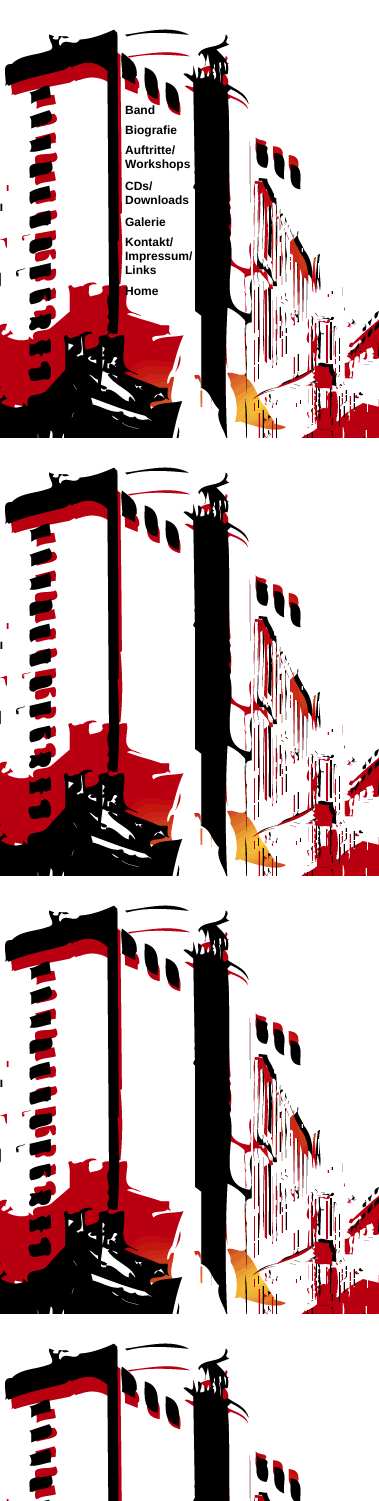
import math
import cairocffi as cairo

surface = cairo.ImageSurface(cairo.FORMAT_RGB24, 379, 1501)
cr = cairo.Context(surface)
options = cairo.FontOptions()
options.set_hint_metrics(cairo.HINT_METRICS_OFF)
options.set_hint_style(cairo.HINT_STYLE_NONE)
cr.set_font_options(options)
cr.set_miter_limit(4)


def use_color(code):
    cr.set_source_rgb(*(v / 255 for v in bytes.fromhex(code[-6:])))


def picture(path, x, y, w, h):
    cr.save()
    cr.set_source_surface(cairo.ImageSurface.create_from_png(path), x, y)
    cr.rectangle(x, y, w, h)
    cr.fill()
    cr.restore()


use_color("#ffffff")
cr.paint()
picture("img1.png", 0, 29, 379, 1472)
cr.select_font_face("Liberation Sans", cairo.FONT_SLANT_NORMAL, cairo.FONT_WEIGHT_BOLD)
cr.set_font_size(12)
use_color("#000000")
cr.move_to(125, 114)
cr.show_text("Band")
cr.move_to(125, 134)
cr.show_text("Biografie")
cr.move_to(125, 154)
cr.show_text("Auftritte/")
cr.move_to(125, 168)
cr.show_text("Workshops")
cr.move_to(125, 190)
cr.show_text("CDs/")
cr.move_to(125, 204)
cr.show_text("Downloads")
cr.move_to(125, 226)
cr.show_text("Galerie")
cr.move_to(125, 246)
cr.show_text("Kontakt/")
cr.move_to(125, 260)
cr.show_text("Impressum/")
cr.move_to(125, 274)
cr.show_text("Links")
cr.move_to(125, 295)
cr.show_text("Home")
surface.write_to_png("result.png")
